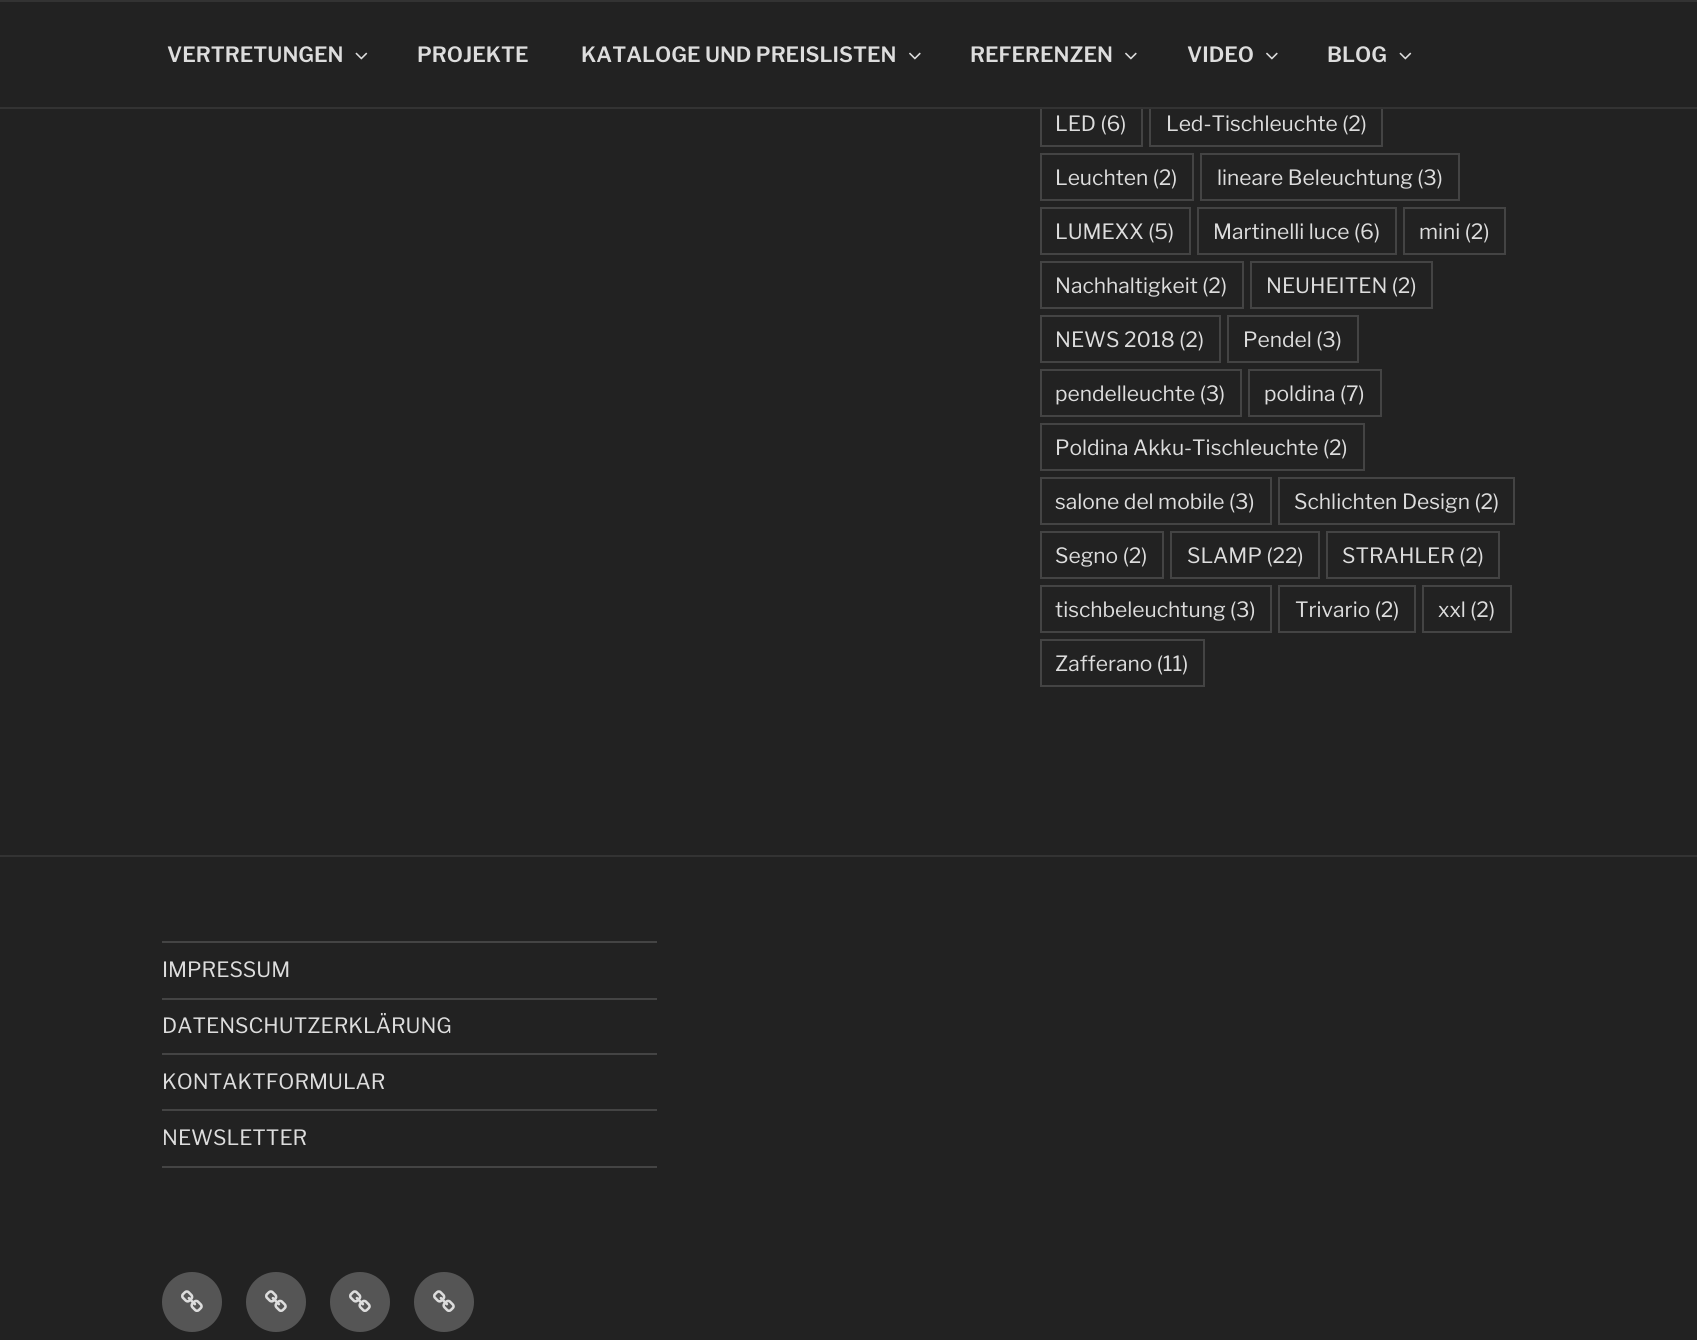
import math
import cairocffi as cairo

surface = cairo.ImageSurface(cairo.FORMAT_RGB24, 1697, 1340)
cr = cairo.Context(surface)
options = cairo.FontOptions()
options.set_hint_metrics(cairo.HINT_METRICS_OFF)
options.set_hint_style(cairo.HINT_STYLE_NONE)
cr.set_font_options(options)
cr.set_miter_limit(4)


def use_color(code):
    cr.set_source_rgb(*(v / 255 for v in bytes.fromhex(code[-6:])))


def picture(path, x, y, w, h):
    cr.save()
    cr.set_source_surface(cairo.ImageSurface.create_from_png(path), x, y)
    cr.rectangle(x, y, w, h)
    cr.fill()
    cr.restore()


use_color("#222222")
cr.paint()
cr.rectangle(1041, 100, 101, 46)
use_color("#444444")
cr.stroke()
cr.rectangle(1150, 100, 232, 46)
cr.stroke()
use_color("#222222")
cr.rectangle(1040, 99, 343, 8)
cr.fill()
use_color("#333333")
cr.rectangle(0, 0, 1697, 2)
cr.fill()
cr.rectangle(0, 107, 1697, 2)
cr.fill()
cr.select_font_face("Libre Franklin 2 Thin")
cr.set_font_size(21)
use_color("#dddddd")
cr.move_to(167, 62)
cr.show_text("VERTRETUNGEN")
picture("img1.png", 355, 52, 13, 8)
cr.move_to(417, 62)
cr.show_text("PROJEKTE")
cr.move_to(581, 62)
cr.show_text("KATALOGE UND PREISLISTEN")
picture("img2.png", 909, 52, 12, 8)
cr.move_to(970, 62)
cr.show_text("REFERENZEN")
picture("img2.png", 1125, 52, 12, 8)
cr.move_to(1187, 62)
cr.show_text("VIDEO")
picture("img2.png", 1266, 52, 12, 8)
cr.move_to(1327, 62)
cr.show_text("BLOG")
picture("img1.png", 1399, 52, 13, 8)
cr.select_font_face("Libre Franklin Thin")
cr.move_to(1055, 131)
cr.show_text("LED (6)")
cr.move_to(1166, 131)
cr.show_text("Led-Tischleuchte (2)")
cr.rectangle(1041, 154, 152, 46)
use_color("#444444")
cr.stroke()
use_color("#dddddd")
cr.move_to(1055, 185)
cr.show_text("Leuchten (2)")
cr.rectangle(1201, 154, 258, 46)
use_color("#444444")
cr.stroke()
use_color("#dddddd")
cr.move_to(1217, 185)
cr.show_text("lineare Beleuchtung (3)")
cr.rectangle(1041, 208, 149, 46)
use_color("#444444")
cr.stroke()
use_color("#dddddd")
cr.move_to(1055, 239)
cr.show_text("LUMEXX (5)")
cr.rectangle(1198, 208, 198, 46)
use_color("#444444")
cr.stroke()
use_color("#dddddd")
cr.move_to(1213, 239)
cr.show_text("Martinelli luce (6)")
cr.rectangle(1404, 208, 101, 46)
use_color("#444444")
cr.stroke()
use_color("#dddddd")
cr.move_to(1419, 239)
cr.show_text("mini (2)")
cr.rectangle(1041, 262, 202, 46)
use_color("#444444")
cr.stroke()
use_color("#dddddd")
cr.move_to(1055, 293)
cr.show_text("Nachhaltigkeit (2)")
cr.rectangle(1251, 262, 181, 46)
use_color("#444444")
cr.stroke()
use_color("#dddddd")
cr.move_to(1266, 293)
cr.show_text("NEUHEITEN (2)")
cr.rectangle(1041, 316, 179, 46)
use_color("#444444")
cr.stroke()
use_color("#dddddd")
cr.move_to(1055, 347)
cr.show_text("NEWS 2018 (2)")
cr.rectangle(1228, 316, 130, 46)
use_color("#444444")
cr.stroke()
use_color("#dddddd")
cr.move_to(1243, 347)
cr.show_text("Pendel (3)")
cr.rectangle(1041, 370, 200, 46)
use_color("#444444")
cr.stroke()
use_color("#dddddd")
cr.move_to(1055, 401)
cr.show_text("pendelleuchte (3)")
cr.rectangle(1249, 370, 132, 46)
use_color("#444444")
cr.stroke()
use_color("#dddddd")
cr.move_to(1264, 401)
cr.show_text("poldina (7)")
cr.rectangle(1041, 424, 323, 46)
use_color("#444444")
cr.stroke()
use_color("#dddddd")
cr.move_to(1055, 455)
cr.show_text("Poldina Akku-Tischleuchte (2)")
cr.rectangle(1041, 478, 230, 46)
use_color("#444444")
cr.stroke()
use_color("#dddddd")
cr.move_to(1055, 509)
cr.show_text("salone del mobile (3)")
cr.rectangle(1279, 478, 235, 46)
use_color("#444444")
cr.stroke()
use_color("#dddddd")
cr.move_to(1294, 509)
cr.show_text("Schlichten Design (2)")
cr.rectangle(1041, 532, 122, 46)
use_color("#444444")
cr.stroke()
use_color("#dddddd")
cr.move_to(1055, 563)
cr.show_text("Segno (2)")
cr.rectangle(1171, 532, 148, 46)
use_color("#444444")
cr.stroke()
use_color("#dddddd")
cr.move_to(1187, 563)
cr.show_text("SLAMP (22)")
cr.rectangle(1327, 532, 172, 46)
use_color("#444444")
cr.stroke()
use_color("#dddddd")
cr.move_to(1342, 563)
cr.show_text("STRAHLER (2)")
cr.rectangle(1041, 586, 230, 46)
use_color("#444444")
cr.stroke()
use_color("#dddddd")
cr.move_to(1055, 617)
cr.show_text("tischbeleuchtung (3)")
cr.rectangle(1279, 586, 136, 46)
use_color("#444444")
cr.stroke()
use_color("#dddddd")
cr.move_to(1295, 617)
cr.show_text("Trivario (2)")
cr.rectangle(1423, 586, 88, 46)
use_color("#444444")
cr.stroke()
use_color("#dddddd")
cr.move_to(1438, 617)
cr.show_text("xxl (2)")
cr.rectangle(1041, 640, 163, 46)
use_color("#444444")
cr.stroke()
use_color("#dddddd")
cr.move_to(1055, 671)
cr.show_text("Zafferano (11)")
use_color("#333333")
cr.rectangle(0, 855, 1697, 2)
cr.fill()
use_color("#444444")
cr.rectangle(162, 941, 495, 2)
cr.fill()
cr.rectangle(162, 998, 495, 2)
cr.fill()
use_color("#dddddd")
cr.move_to(162, 977)
cr.show_text("IMPRESSUM")
use_color("#444444")
cr.rectangle(162, 1053, 495, 2)
cr.fill()
use_color("#dddddd")
cr.move_to(162, 1033)
cr.show_text("DATENSCHUTZERKLÄRUNG")
use_color("#444444")
cr.rectangle(162, 1109, 495, 2)
cr.fill()
use_color("#dddddd")
cr.move_to(162, 1089)
cr.show_text("KONTAKTFORMULAR")
use_color("#444444")
cr.rectangle(162, 1166, 495, 2)
cr.fill()
use_color("#dddddd")
cr.move_to(162, 1145)
cr.show_text("NEWSLETTER")
use_color("#555555")
cr.new_path()
cr.arc(192, 1302, 30, 0, 2 * math.pi)
cr.fill()
picture("img3.png", 181, 1290, 22, 22)
cr.arc(276, 1302, 30, 0, 2 * math.pi)
cr.fill()
picture("img3.png", 265, 1290, 22, 22)
cr.arc(360, 1302, 30, 0, 2 * math.pi)
cr.fill()
picture("img3.png", 349, 1290, 22, 22)
cr.arc(444, 1302, 30, 0, 2 * math.pi)
cr.fill()
picture("img3.png", 433, 1290, 22, 22)
surface.write_to_png("result.png")
